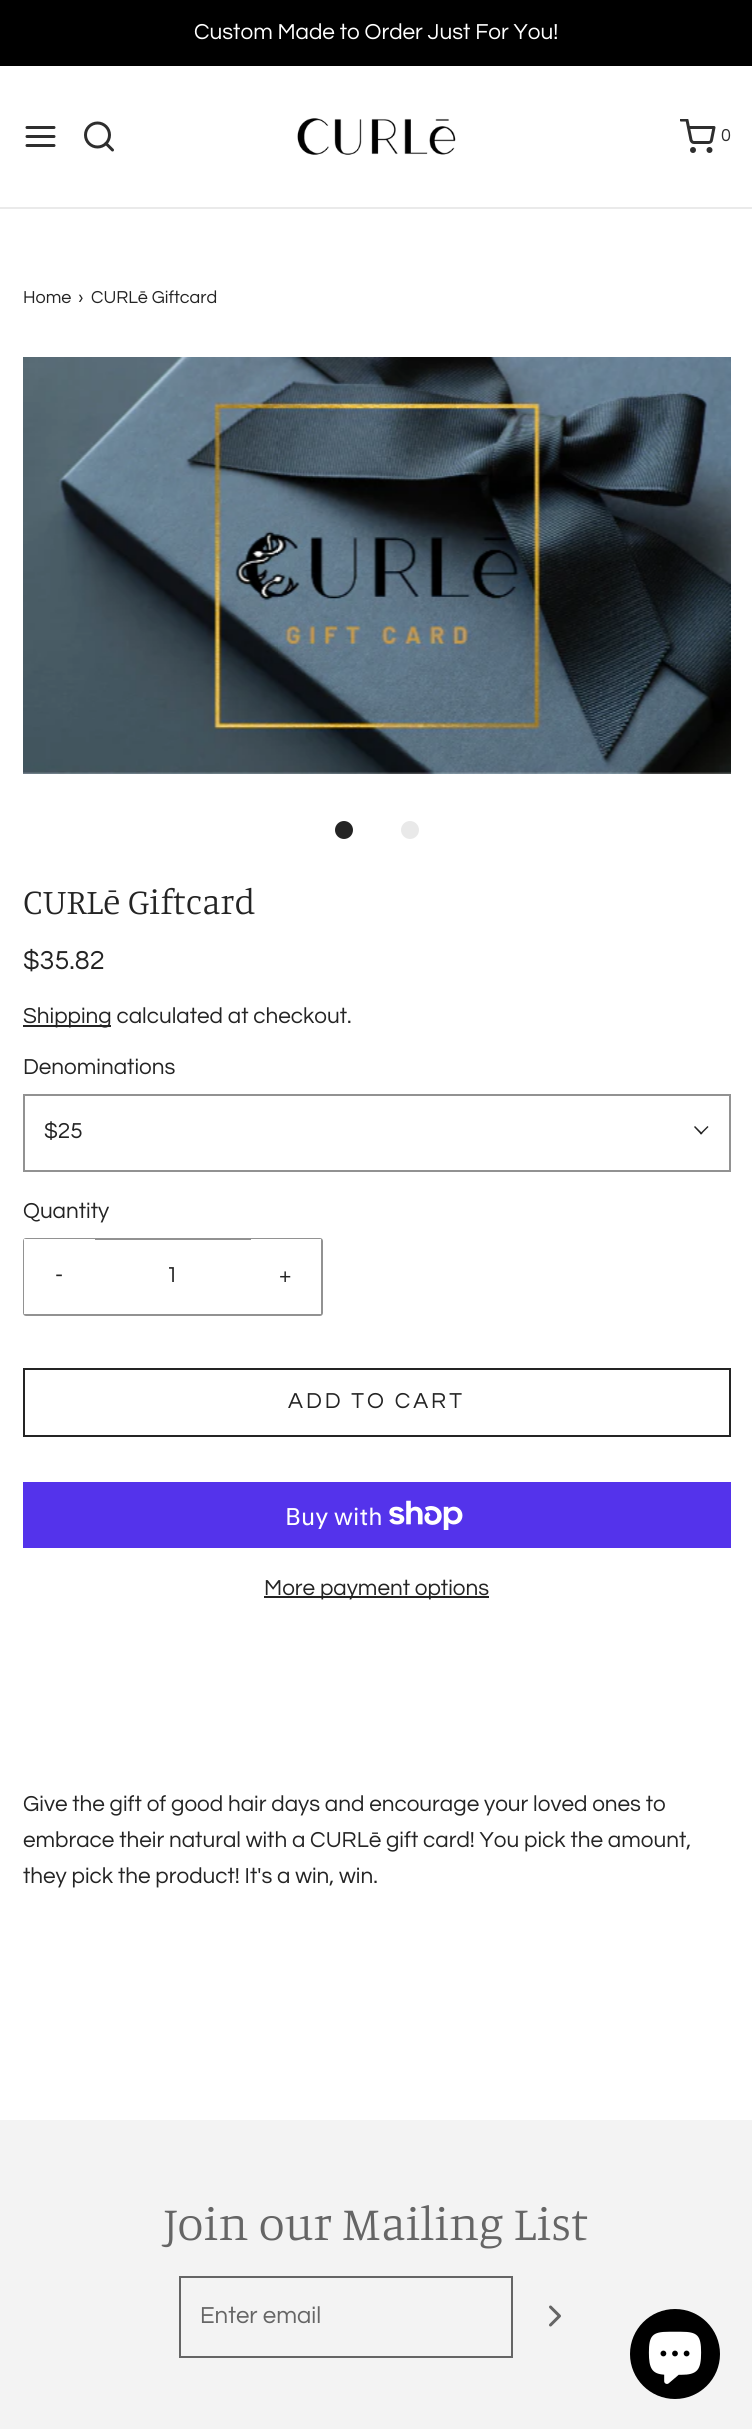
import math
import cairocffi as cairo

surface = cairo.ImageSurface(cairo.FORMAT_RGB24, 752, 2429)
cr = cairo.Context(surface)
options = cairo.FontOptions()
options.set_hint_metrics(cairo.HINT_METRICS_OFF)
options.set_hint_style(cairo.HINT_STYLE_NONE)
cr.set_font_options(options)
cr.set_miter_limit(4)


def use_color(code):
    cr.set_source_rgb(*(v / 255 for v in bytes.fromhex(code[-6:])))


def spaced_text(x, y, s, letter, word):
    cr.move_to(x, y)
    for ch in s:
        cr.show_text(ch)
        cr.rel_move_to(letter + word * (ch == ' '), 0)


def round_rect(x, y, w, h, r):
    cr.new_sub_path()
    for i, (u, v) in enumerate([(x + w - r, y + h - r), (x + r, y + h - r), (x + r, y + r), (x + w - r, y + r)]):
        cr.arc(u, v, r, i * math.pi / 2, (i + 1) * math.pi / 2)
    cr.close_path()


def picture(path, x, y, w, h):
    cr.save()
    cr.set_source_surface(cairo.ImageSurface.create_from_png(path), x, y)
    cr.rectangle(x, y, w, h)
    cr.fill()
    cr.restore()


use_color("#ffffff")
cr.paint()
use_color("#000000")
cr.rectangle(0, 0, 752, 66)
cr.fill()
cr.select_font_face("Questrial")
cr.set_font_size(22.5)
use_color("#ffffff")
cr.move_to(194, 39)
cr.show_text("Custom Made to Order Just For You!")
use_color("#eaeaea")
cr.rectangle(0, 207, 752, 2)
cr.fill()
cr.new_path()
cr.move_to(27, 136.5)
cr.line_to(54, 136.5)
cr.move_to(27, 127.5)
cr.line_to(54, 127.5)
cr.move_to(27, 145.5)
cr.line_to(54, 145.5)
use_color("#2e2e2e")
cr.set_line_width(3)
cr.set_line_cap(cairo.LINE_CAP_ROUND)
cr.set_line_join(cairo.LINE_JOIN_ROUND)
cr.stroke()
cr.arc(97.5, 135, 12, 0, 2 * math.pi)
cr.set_line_cap(cairo.LINE_CAP_BUTT)
cr.set_line_join(cairo.LINE_JOIN_MITER)
cr.stroke()
cr.new_path()
cr.move_to(112.5, 150)
cr.line_to(106, 143.5)
cr.set_line_cap(cairo.LINE_CAP_ROUND)
cr.set_line_join(cairo.LINE_JOIN_ROUND)
cr.stroke()
picture("img1.png", 297, 118, 159, 37)
cr.arc(693, 150, 1.5, 0, 2 * math.pi)
cr.set_line_cap(cairo.LINE_CAP_BUTT)
cr.set_line_join(cairo.LINE_JOIN_MITER)
cr.stroke()
cr.arc(709.5, 150, 1.5, 0, 2 * math.pi)
cr.stroke()
cr.save()
cr.rectangle(680, 119, 36, 36)
cr.clip()
cr.new_path()
cr.move_to(681, 120)
cr.line_to(687, 120)
cr.line_to(691, 140)
cr.curve_to(691.5, 141.5, 692.5, 142.5, 694, 142.5)
cr.line_to(708.5, 142.5)
cr.curve_to(710, 142.5, 711.5, 141.5, 711.5, 140)
cr.line_to(714, 127.5)
cr.line_to(688.5, 127.5)
cr.set_line_cap(cairo.LINE_CAP_ROUND)
cr.set_line_join(cairo.LINE_JOIN_ROUND)
cr.stroke()
cr.restore()
cr.set_font_size(18)
cr.move_to(721, 141)
cr.show_text("0")
use_color("#242424")
cr.move_to(23, 303)
cr.show_text("Home")
cr.move_to(78, 303)
cr.show_text("›")
cr.move_to(91, 303)
cr.show_text("CURLē Giftcard")
picture("img2.png", 23, 357, 708, 417)
cr.arc(344, 830, 9, 0, 2 * math.pi)
cr.fill()
use_color("#e9e9e9")
cr.arc(410, 830, 9, 0, 2 * math.pi)
cr.fill()
cr.select_font_face("Manuale Light")
cr.set_font_size(36)
use_color("#242424")
cr.move_to(23, 914)
cr.show_text("CURLē Giftcard")
cr.select_font_face("Questrial")
cr.set_font_size(27)
cr.move_to(23, 969)
cr.show_text("$35.82")
cr.rectangle(23, 1025, 88, 2)
cr.fill()
cr.set_font_size(22.5)
cr.move_to(23, 1023)
cr.show_text("Shipping calculated at checkout.")
cr.move_to(23, 1074)
cr.show_text("Denominations")
cr.rectangle(24, 1095, 706, 76)
use_color("#929292")
cr.set_line_width(2)
cr.stroke()
use_color("#242424")
cr.move_to(44, 1138)
cr.show_text("$25")
cr.new_path()
cr.move_to(707.5, 1126)
cr.line_to(708.5, 1127)
cr.line_to(701, 1134.5)
cr.line_to(700, 1133.5)
cr.close_path()
cr.fill()
cr.new_path()
cr.move_to(695, 1126)
cr.line_to(702.5, 1133.5)
cr.line_to(701, 1134.5)
cr.line_to(694, 1127)
cr.close_path()
cr.fill()
cr.move_to(23, 1218)
cr.show_text("Quantity")
round_rect(24, 1239, 298, 76, 2)
use_color("#929292")
cr.stroke()
use_color("#ffffff")
cr.rectangle(24, 1239, 71, 75)
cr.fill()
use_color("#242424")
cr.move_to(55, 1282)
cr.show_text("-")
cr.move_to(166, 1282)
cr.show_text("1")
use_color("#ffffff")
cr.rectangle(251, 1239, 70, 75)
cr.fill()
use_color("#242424")
cr.move_to(279, 1282)
cr.show_text("+")
cr.rectangle(24, 1369, 706, 67)
cr.stroke()
spaced_text(288, 1408, "ADD TO CART", 3, 0)
use_color("#5433eb")
cr.rectangle(23, 1482, 708, 66)
cr.fill()
cr.select_font_face("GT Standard")
cr.set_font_size(24)
use_color("#ffffff")
cr.move_to(285, 1525)
cr.show_text("Buy with")
picture("img3.png", 389, 1500, 74, 30)
use_color("#242424")
cr.rectangle(264, 1596, 225, 2)
cr.fill()
cr.select_font_face("Questrial")
cr.set_font_size(22.5)
cr.move_to(264, 1595)
cr.show_text("More payment options")
cr.move_to(23, 1811)
cr.show_text("Give the gift of good hair days and encourage your loved ones to")
cr.move_to(23, 1847)
cr.show_text("embrace their natural with a CURLē gift card! You pick the amount,")
cr.move_to(23, 1883)
cr.show_text("they pick the product! It's a win, win.")
use_color("#f3f3f3")
cr.rectangle(0, 2120, 752, 309)
cr.fill()
cr.select_font_face("Manuale Light")
cr.set_font_size(48)
use_color("#656565")
cr.move_to(164, 2240)
cr.show_text("Join our Mailing List")
cr.rectangle(180, 2277, 332, 80)
cr.stroke()
cr.select_font_face("Questrial")
cr.set_font_size(24)
cr.move_to(200, 2323)
cr.show_text("Enter email")
cr.new_path()
cr.move_to(550.5, 2325)
cr.line_to(559.5, 2316)
cr.line_to(550.5, 2307)
cr.set_line_width(3)
cr.set_line_cap(cairo.LINE_CAP_ROUND)
cr.set_line_join(cairo.LINE_JOIN_ROUND)
cr.stroke()
use_color("#000000")
cr.arc(675, 2354, 45, 0, 2 * math.pi)
cr.fill()
picture("img4.png", 648, 2331, 54, 53)
surface.write_to_png("result.png")
